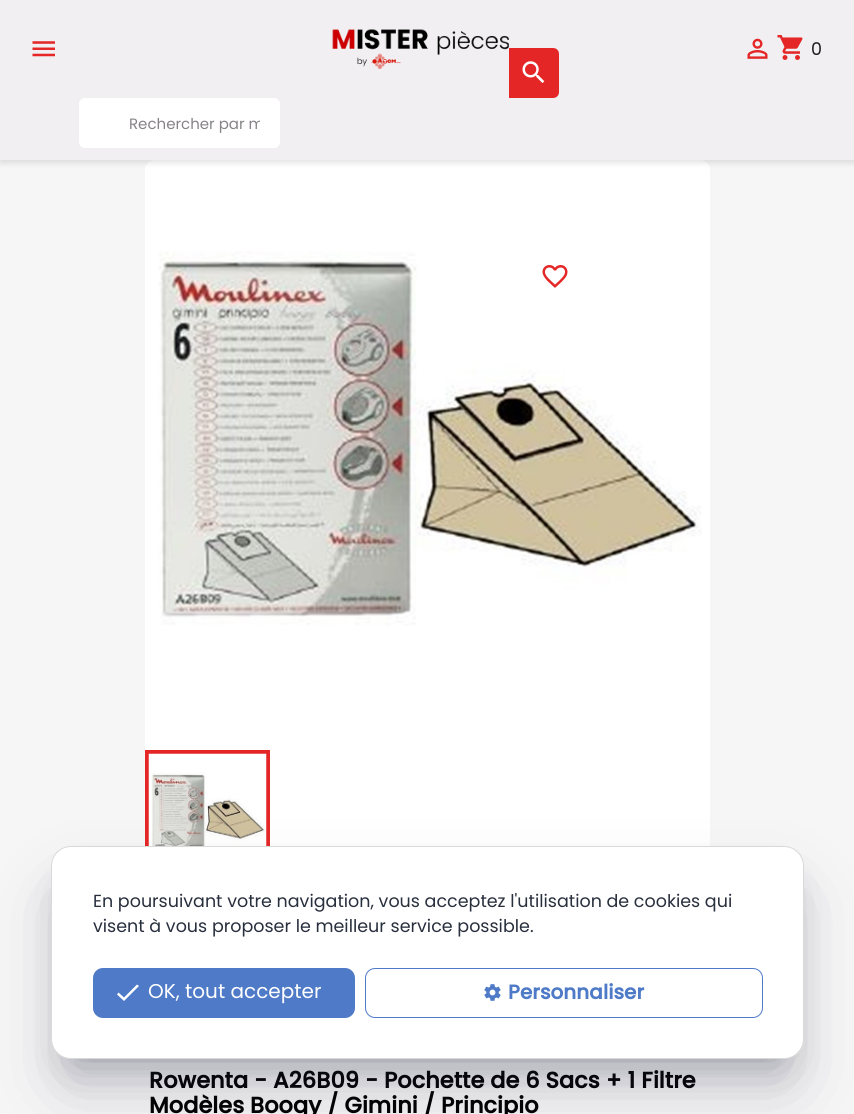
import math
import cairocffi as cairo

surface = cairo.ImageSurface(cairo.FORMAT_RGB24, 854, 1114)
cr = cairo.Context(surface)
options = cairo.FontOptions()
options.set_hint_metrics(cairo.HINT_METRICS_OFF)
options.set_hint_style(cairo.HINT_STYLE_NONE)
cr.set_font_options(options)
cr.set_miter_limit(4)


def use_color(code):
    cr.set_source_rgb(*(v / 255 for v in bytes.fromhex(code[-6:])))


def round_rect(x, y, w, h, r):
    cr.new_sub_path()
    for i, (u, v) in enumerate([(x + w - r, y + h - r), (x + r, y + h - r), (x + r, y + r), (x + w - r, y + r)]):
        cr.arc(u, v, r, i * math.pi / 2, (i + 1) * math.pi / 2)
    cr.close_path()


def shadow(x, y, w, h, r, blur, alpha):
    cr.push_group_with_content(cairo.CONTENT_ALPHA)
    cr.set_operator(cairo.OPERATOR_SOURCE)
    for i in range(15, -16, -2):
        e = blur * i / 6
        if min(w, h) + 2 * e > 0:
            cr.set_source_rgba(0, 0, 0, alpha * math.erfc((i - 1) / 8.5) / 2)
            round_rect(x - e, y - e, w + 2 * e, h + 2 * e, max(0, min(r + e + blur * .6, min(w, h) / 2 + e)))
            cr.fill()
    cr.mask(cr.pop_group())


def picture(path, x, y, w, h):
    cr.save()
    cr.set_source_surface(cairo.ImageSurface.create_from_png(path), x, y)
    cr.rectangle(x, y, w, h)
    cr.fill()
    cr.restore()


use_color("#f6f6f6")
cr.paint()
use_color("#ffffff")
round_rect(145, 160, 565, 748, 10)
cr.fill()
use_color("#000000")
shadow(0, 3, 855, 160, 0, 3, 0.11)
use_color("#f1eff1")
cr.rectangle(0, 0, 854, 160)
cr.fill()
picture("img1.png", 32, 41, 23, 16)
picture("img2.png", 332, 29, 177, 40)
picture("img3.png", 747, 38, 21, 21)
picture("img4.png", 777, 35, 26, 25)
cr.select_font_face("Poppins")
cr.set_font_size(17.5)
use_color("#201a23")
cr.move_to(811, 55)
cr.show_text("0")
use_color("#e42626")
cr.new_path()
cr.move_to(509, 48)
cr.line_to(553, 48)
cr.curve_to(556.5, 48, 559, 50.5, 559, 54)
cr.line_to(559, 92)
cr.curve_to(559, 95.5, 556.5, 98, 553, 98)
cr.line_to(509, 98)
cr.close_path()
cr.fill()
picture("img5.png", 522, 61, 23, 22)
use_color("#ffffff")
round_rect(79, 98, 201, 50, 6)
cr.fill()
cr.save()
cr.rectangle(129, 113, 131, 22)
cr.clip()
cr.set_font_size(15)
use_color("#878388")
cr.move_to(129, 129)
cr.show_text("Rechercher par m")
cr.restore()
picture("img6.png", 158, 251, 544, 375)
cr.rectangle(147, 752, 121, 121)
use_color("#e42626")
cr.set_line_width(4)
cr.stroke()
picture("img7.png", 148, 753, 119, 93)
picture("img8.png", 542, 265, 26, 23)
cr.select_font_face("Poppins", cairo.FONT_SLANT_NORMAL, cairo.FONT_WEIGHT_BOLD)
cr.set_font_size(22.5)
use_color("#000000")
cr.move_to(149, 1088)
cr.show_text("Rowenta - A26B09 - Pochette de 6 Sacs + 1 Filtre")
cr.move_to(149, 1113)
cr.show_text("Modèles Boogy / Gimini / Principio")
use_color("#000000")
shadow(74, 891, 707, 168, 0, 22.5, 0.3)
use_color("#32325d")
shadow(66, 899, 723, 182, 5, 37.5, 0.25)
use_color("#ffffff")
round_rect(51.5, 846.5, 752, 212, 19.5)
cr.fill_preserve()
use_color("#d9d9d9")
cr.set_line_width(1)
cr.stroke()
cr.select_font_face("Poppins")
cr.set_font_size(17.5)
use_color("#282f3d")
cr.move_to(93, 907)
cr.show_text("En poursuivant votre navigation, vous acceptez l'utilisation de cookies qui")
cr.move_to(93, 932)
cr.show_text("visent à vous proposer le meilleur service possible.")
use_color("#4e7ac7")
round_rect(93, 968, 262, 50, 10)
cr.fill()
use_color("#ffffff")
cr.new_path()
cr.move_to(124, 997.5)
cr.line_to(137, 984.5)
cr.line_to(139, 986)
cr.line_to(124, 1001)
cr.line_to(117, 994.5)
cr.line_to(118.5, 992.5)
cr.close_path()
cr.fill()
cr.set_font_size(20)
cr.move_to(148, 998)
cr.show_text("OK, tout accepter")
round_rect(365.5, 968.5, 397, 49, 9.5)
use_color("#4e7ac7")
cr.stroke()
picture("img9.png", 484, 984, 17, 17)
cr.select_font_face("Poppins", cairo.FONT_SLANT_NORMAL, cairo.FONT_WEIGHT_BOLD)
cr.move_to(508, 999)
cr.show_text("Personnaliser")
surface.write_to_png("result.png")
